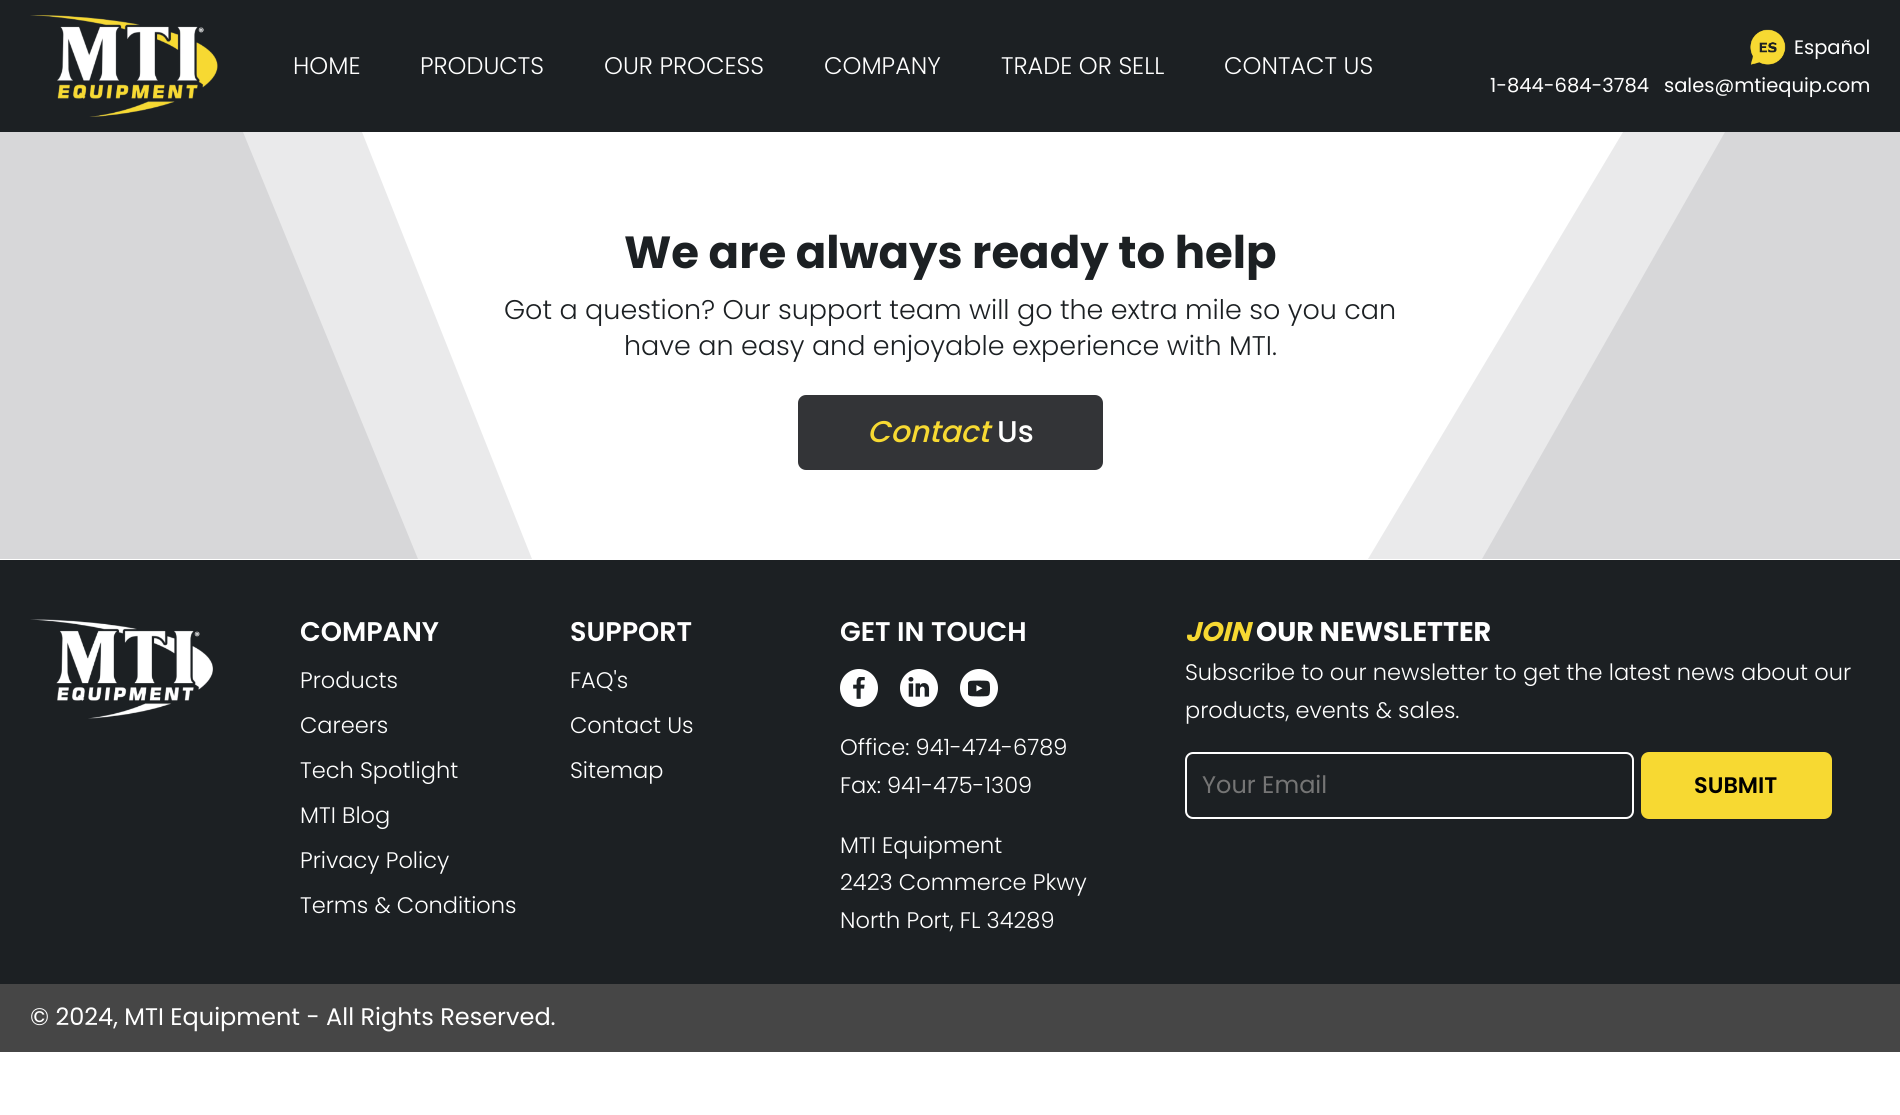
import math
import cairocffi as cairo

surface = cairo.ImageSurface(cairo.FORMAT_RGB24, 1900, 1115)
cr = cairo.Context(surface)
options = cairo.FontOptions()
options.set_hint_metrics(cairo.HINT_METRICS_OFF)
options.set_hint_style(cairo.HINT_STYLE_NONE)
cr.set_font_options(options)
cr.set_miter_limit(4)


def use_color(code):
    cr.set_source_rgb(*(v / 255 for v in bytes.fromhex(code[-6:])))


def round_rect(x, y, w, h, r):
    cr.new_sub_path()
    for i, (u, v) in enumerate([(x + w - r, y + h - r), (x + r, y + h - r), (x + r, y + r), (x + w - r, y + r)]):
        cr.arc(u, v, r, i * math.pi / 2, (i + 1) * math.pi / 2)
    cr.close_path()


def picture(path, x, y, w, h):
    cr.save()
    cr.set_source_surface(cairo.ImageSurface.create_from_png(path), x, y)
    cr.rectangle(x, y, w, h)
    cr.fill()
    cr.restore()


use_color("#ffffff")
cr.paint()
use_color("#1c2023")
cr.rectangle(0, 0, 1900, 132)
cr.fill()
picture("img1.png", 30, 15, 188, 102)
cr.select_font_face("Poppins Light")
cr.set_font_size(24)
use_color("#ffffff")
cr.move_to(293, 74)
cr.show_text("HOME")
cr.move_to(420, 74)
cr.show_text("PRODUCTS")
cr.move_to(604, 74)
cr.show_text("OUR PROCESS")
cr.move_to(824, 74)
cr.show_text("COMPANY")
cr.move_to(1001, 74)
cr.show_text("TRADE OR SELL")
cr.move_to(1224, 74)
cr.show_text("CONTACT US")
picture("img2.png", 1750, 29, 36, 36)
cr.select_font_face("Poppins")
cr.set_font_size(19.5)
cr.move_to(1794, 54)
cr.show_text("Español")
cr.move_to(1490, 92)
cr.show_text("1-844-684-3784")
cr.move_to(1664, 92)
cr.show_text("sales@mtiequip.com")
use_color("#eaeaeb")
cr.new_path()
cr.move_to(0, 132)
cr.line_to(0, 559)
cr.line_to(532, 559)
cr.line_to(362, 132)
cr.close_path()
cr.fill()
use_color("#d7d7d9")
cr.new_path()
cr.move_to(0, 132)
cr.line_to(0, 559)
cr.line_to(418, 559)
cr.line_to(243, 132)
cr.close_path()
cr.fill()
cr.select_font_face("Poppins", cairo.FONT_SLANT_NORMAL, cairo.FONT_WEIGHT_BOLD)
cr.set_font_size(45)
use_color("#1c2023")
cr.move_to(624, 268)
cr.show_text("We are always ready to help")
use_color("#eaeaeb")
cr.new_path()
cr.move_to(1900, 132)
cr.line_to(1900, 559)
cr.line_to(1368, 559)
cr.line_to(1623, 132)
cr.close_path()
cr.fill()
cr.select_font_face("Poppins Light")
cr.set_font_size(27)
use_color("#1c2023")
cr.move_to(504, 319)
cr.show_text("Got a question? Our support team will go the extra mile so you can")
cr.move_to(624, 355)
cr.show_text("have an easy and enjoyable experience with MTI.")
use_color("#333437")
round_rect(799, 396, 303, 73, 7)
cr.fill_preserve()
cr.stroke()
cr.select_font_face("Poppins Medium", cairo.FONT_SLANT_ITALIC)
cr.set_font_size(30)
use_color("#f7d932")
cr.move_to(867, 442)
cr.show_text("Contact")
cr.select_font_face("Poppins Medium")
use_color("#ffffff")
cr.move_to(997, 442)
cr.show_text("Us")
use_color("#d7d7d9")
cr.new_path()
cr.move_to(1900, 132)
cr.line_to(1900, 559)
cr.line_to(1482, 559)
cr.line_to(1725, 132)
cr.close_path()
cr.fill()
use_color("#1c2023")
cr.rectangle(0, 560, 1900, 424)
cr.fill()
picture("img3.png", 30, 619, 183, 100)
cr.select_font_face("Poppins SemiBold")
cr.set_font_size(27)
use_color("#ffffff")
cr.move_to(300, 641)
cr.show_text("COMPANY")
cr.select_font_face("Poppins Light")
cr.set_font_size(22.5)
cr.move_to(300, 688)
cr.show_text("Products")
cr.move_to(300, 733)
cr.show_text("Careers")
cr.move_to(300, 778)
cr.show_text("Tech Spotlight")
cr.move_to(300, 823)
cr.show_text("MTI Blog")
cr.move_to(300, 868)
cr.show_text("Privacy Policy")
cr.move_to(300, 913)
cr.show_text("Terms & Conditions")
cr.select_font_face("Poppins SemiBold")
cr.set_font_size(27)
cr.move_to(570, 641)
cr.show_text("SUPPORT")
cr.select_font_face("Poppins Light")
cr.set_font_size(22.5)
cr.move_to(570, 688)
cr.show_text("FAQ's")
cr.move_to(570, 733)
cr.show_text("Contact Us")
cr.move_to(570, 778)
cr.show_text("Sitemap")
cr.select_font_face("Poppins SemiBold")
cr.set_font_size(27)
cr.move_to(840, 641)
cr.show_text("GET IN TOUCH")
cr.new_path()
cr.arc(859, 688, 19, 0, 2 * math.pi)
cr.fill()
picture("img4.png", 853, 677, 12, 22)
cr.arc(919, 688, 19, 0, 2 * math.pi)
cr.fill()
picture("img5.png", 908, 677, 22, 20)
cr.arc(979, 688, 19, 0, 2 * math.pi)
cr.fill()
picture("img6.png", 968, 680, 22, 17)
cr.select_font_face("Poppins Light")
cr.set_font_size(22.5)
cr.move_to(840, 755)
cr.show_text("Office: 941-474-6789")
cr.move_to(840, 793)
cr.show_text("Fax: 941-475-1309")
cr.move_to(840, 853)
cr.show_text("MTI Equipment")
cr.move_to(840, 890)
cr.show_text("2423 Commerce Pkwy")
cr.move_to(840, 928)
cr.show_text("North Port, FL 34289")
cr.select_font_face("Poppins", cairo.FONT_SLANT_ITALIC, cairo.FONT_WEIGHT_BOLD)
cr.set_font_size(27)
use_color("#f7d932")
cr.move_to(1185, 641)
cr.show_text("JOIN")
cr.select_font_face("Poppins", cairo.FONT_SLANT_NORMAL, cairo.FONT_WEIGHT_BOLD)
use_color("#ffffff")
cr.move_to(1256, 641)
cr.show_text("OUR NEWSLETTER")
cr.select_font_face("Poppins Light")
cr.set_font_size(22.5)
cr.move_to(1185, 680)
cr.show_text("Subscribe to our newsletter to get the latest news about our")
cr.move_to(1185, 718)
cr.show_text("products, events & sales.")
round_rect(1186, 753, 447, 65, 7)
cr.stroke()
cr.select_font_face("Poppins")
cr.set_font_size(24)
use_color("#757575")
cr.move_to(1202, 793)
cr.show_text("Your Email")
use_color("#f7d932")
round_rect(1641, 752, 191, 67, 8)
cr.fill()
cr.select_font_face("Poppins SemiBold")
cr.set_font_size(22.5)
use_color("#000000")
cr.move_to(1694, 793)
cr.show_text("SUBMIT")
use_color("#464646")
cr.rectangle(0, 984, 1900, 68)
cr.fill()
cr.select_font_face("Poppins")
cr.set_font_size(24)
use_color("#ffffff")
cr.move_to(30, 1025)
cr.show_text("© 2024, MTI Equipment - All Rights Reserved.")
surface.write_to_png("result.png")
